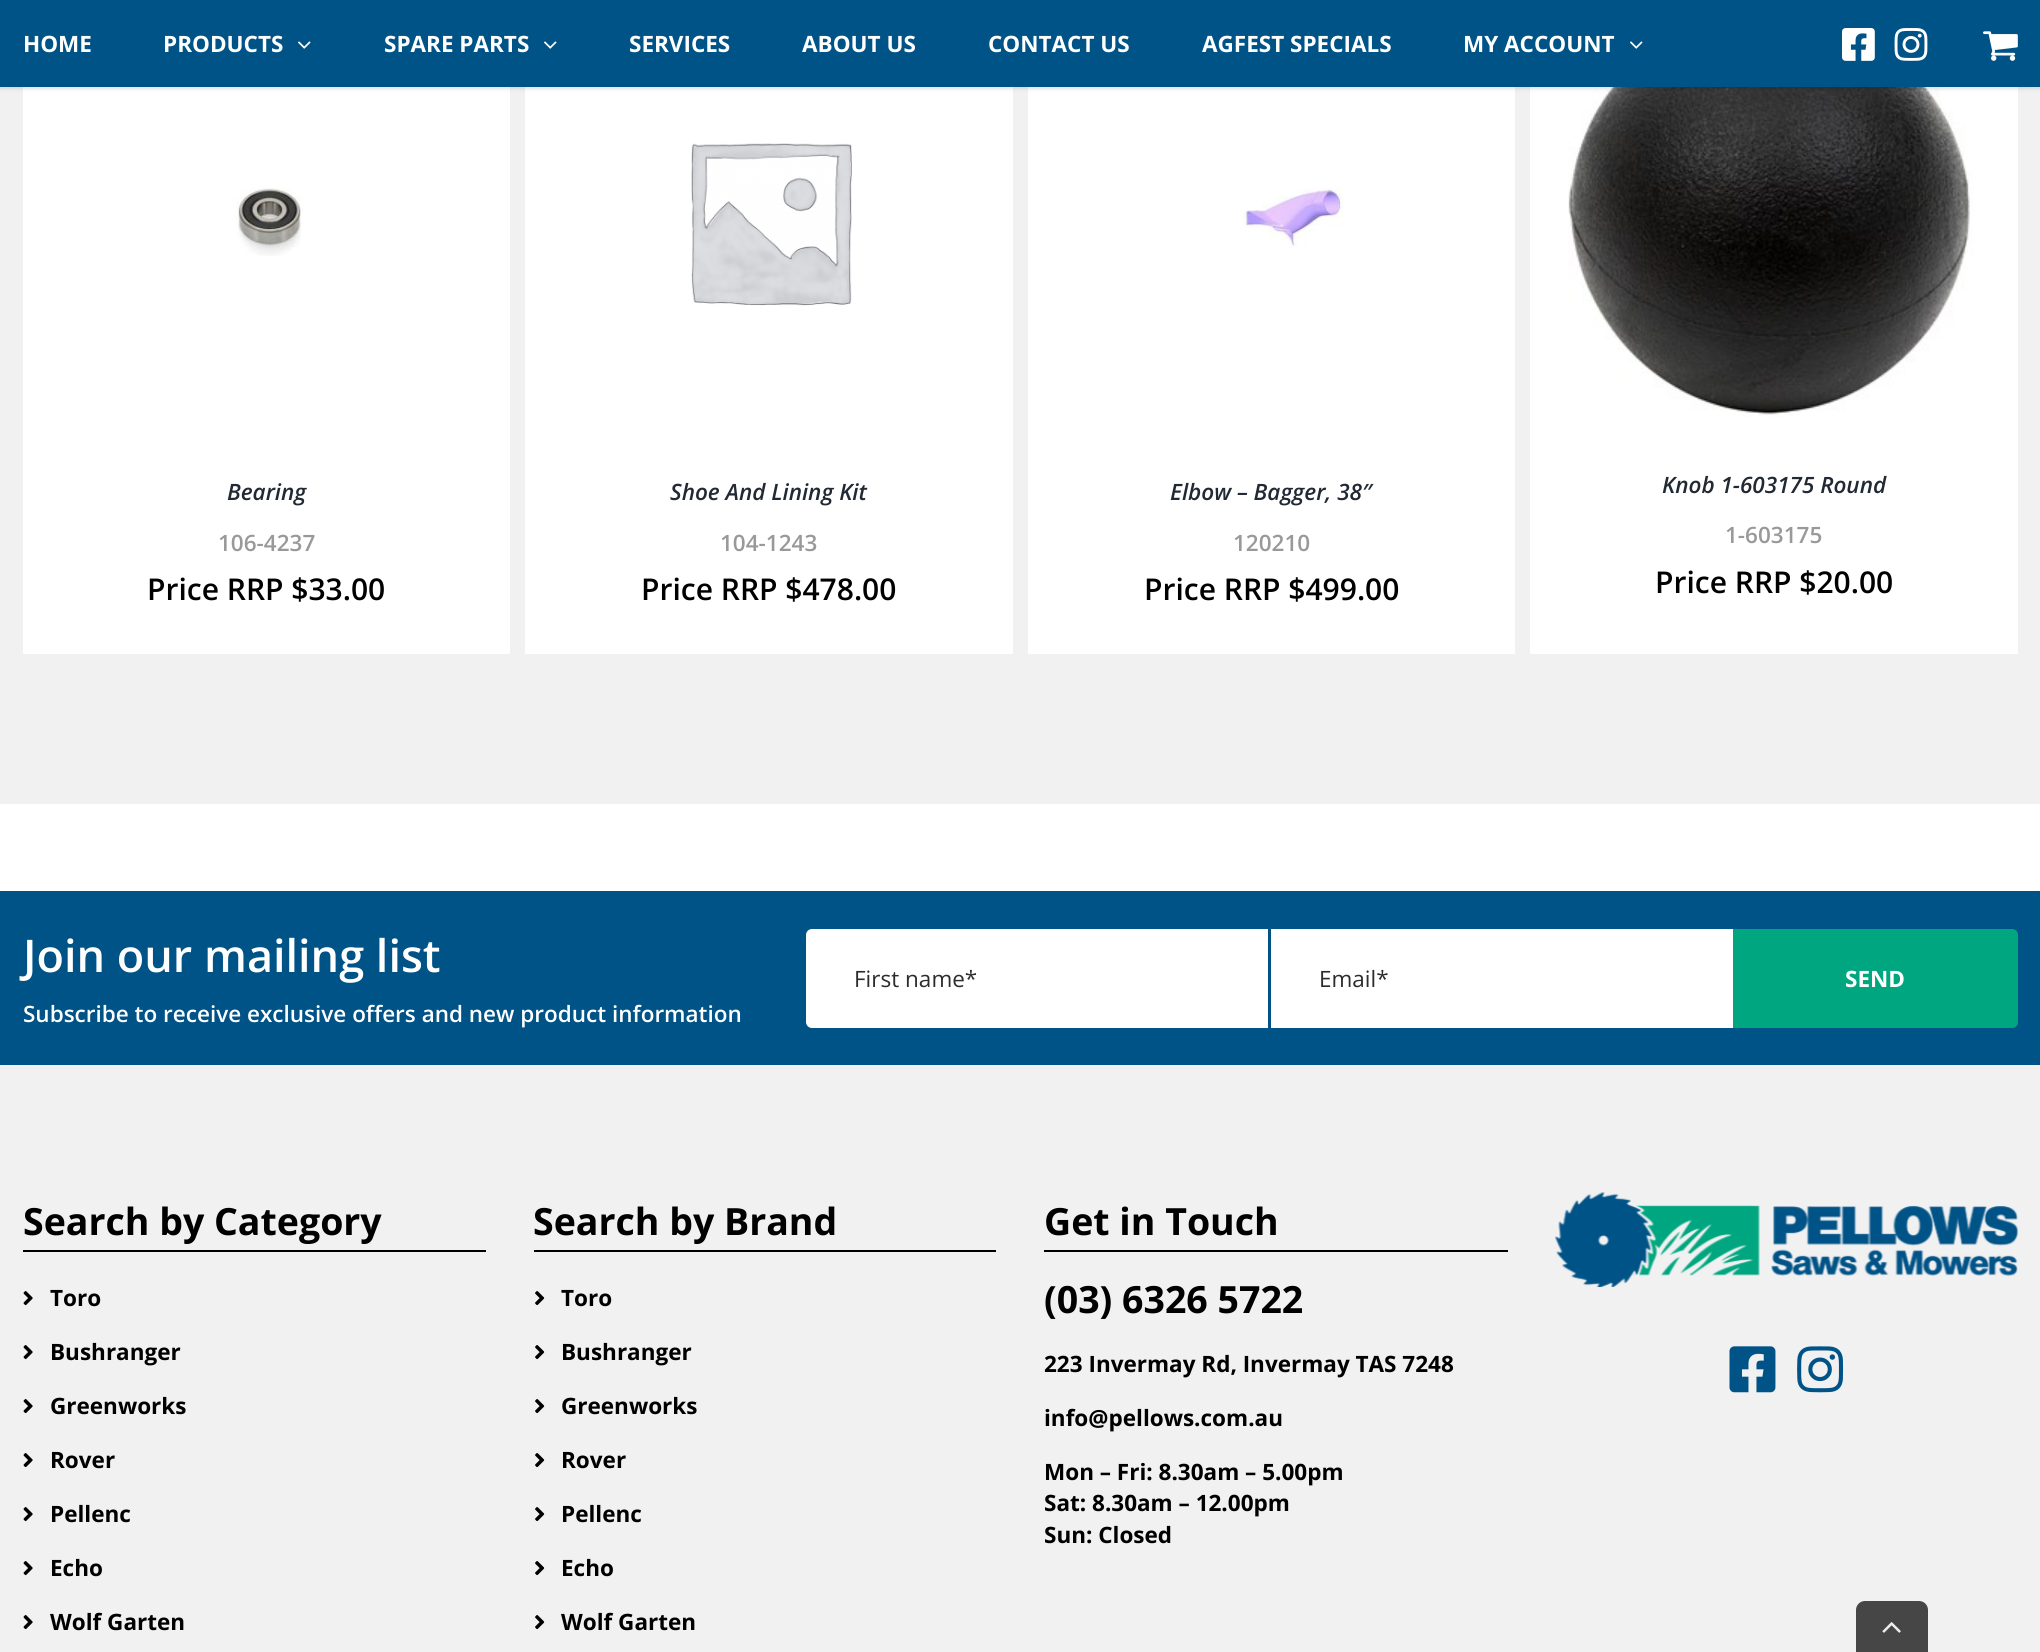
import math
import cairocffi as cairo

surface = cairo.ImageSurface(cairo.FORMAT_RGB24, 2040, 1652)
cr = cairo.Context(surface)
options = cairo.FontOptions()
options.set_hint_metrics(cairo.HINT_METRICS_OFF)
options.set_hint_style(cairo.HINT_STYLE_NONE)
cr.set_font_options(options)
cr.set_miter_limit(4)


def use_color(code):
    cr.set_source_rgb(*(v / 255 for v in bytes.fromhex(code[-6:])))


def round_rect(x, y, w, h, r):
    cr.new_sub_path()
    for i, (u, v) in enumerate([(x + w - r, y + h - r), (x + r, y + h - r), (x + r, y + r), (x + w - r, y + r)]):
        cr.arc(u, v, r, i * math.pi / 2, (i + 1) * math.pi / 2)
    cr.close_path()


def shadow(x, y, w, h, r, blur, alpha):
    cr.push_group_with_content(cairo.CONTENT_ALPHA)
    cr.set_operator(cairo.OPERATOR_SOURCE)
    for i in range(15, -16, -2):
        e = blur * i / 6
        if min(w, h) + 2 * e > 0:
            cr.set_source_rgba(0, 0, 0, alpha * math.erfc((i - 1) / 8.5) / 2)
            round_rect(x - e, y - e, w + 2 * e, h + 2 * e, max(0, min(r + e + blur * .6, min(w, h) / 2 + e)))
            cr.fill()
    cr.mask(cr.pop_group())


def picture(path, x, y, w, h):
    cr.save()
    cr.set_source_surface(cairo.ImageSurface.create_from_png(path), x, y)
    cr.rectangle(x, y, w, h)
    cr.fill()
    cr.restore()


use_color("#f1f1f2")
cr.paint()
use_color("#ffffff")
cr.rectangle(23, 87, 487, 567)
cr.fill()
cr.rectangle(525, 87, 488, 567)
cr.fill()
cr.rectangle(1028, 87, 487, 567)
cr.fill()
cr.rectangle(1530, 87, 488, 567)
cr.fill()
picture("img8.png", 1568, 87, 406, 330)
use_color("#000000")
shadow(0, 2, 2040, 87, 0, 2, 0.12)
use_color("#005387")
cr.rectangle(0, 0, 2040, 87)
cr.fill()
cr.select_font_face("Open Sans", cairo.FONT_SLANT_NORMAL, cairo.FONT_WEIGHT_BOLD)
cr.set_font_size(22.5)
use_color("#ffffff")
cr.move_to(23, 52)
cr.show_text("HOME")
cr.move_to(163, 52)
cr.show_text("PRODUCTS")
picture("img1.png", 298, 41, 13, 8)
cr.move_to(384, 52)
cr.show_text("SPARE PARTS")
picture("img1.png", 544, 41, 13, 8)
cr.move_to(629, 52)
cr.show_text("SERVICES")
cr.move_to(802, 52)
cr.show_text("ABOUT US")
cr.move_to(988, 52)
cr.show_text("CONTACT US")
cr.move_to(1202, 52)
cr.show_text("AGFEST SPECIALS")
cr.move_to(1463, 52)
cr.show_text("MY ACCOUNT")
picture("img1.png", 1630, 41, 13, 8)
picture("img2.png", 1842, 28, 33, 33)
picture("img3.png", 1894, 28, 34, 33)
picture("img4.png", 1983, 31, 35, 30)
picture("img5.png", 235, 188, 66, 68)
cr.select_font_face("Open Sans SemiBold", cairo.FONT_SLANT_ITALIC)
use_color("#212934")
cr.move_to(227, 500)
cr.show_text("Bearing")
cr.select_font_face("Open Sans SemiBold")
use_color("#999999")
cr.move_to(218, 551)
cr.show_text("106-4237")
cr.set_font_size(30)
use_color("#000000")
cr.move_to(147, 600)
cr.show_text("Price RRP $33.00")
picture("img6.png", 691, 143, 161, 163)
cr.select_font_face("Open Sans SemiBold", cairo.FONT_SLANT_ITALIC)
cr.set_font_size(22.5)
use_color("#212934")
cr.move_to(670, 500)
cr.show_text("Shoe And Lining Kit")
cr.select_font_face("Open Sans SemiBold")
use_color("#999999")
cr.move_to(720, 551)
cr.show_text("104-1243")
cr.set_font_size(30)
use_color("#000000")
cr.move_to(641, 600)
cr.show_text("Price RRP $478.00")
picture("img7.png", 1240, 188, 105, 60)
cr.select_font_face("Open Sans SemiBold", cairo.FONT_SLANT_ITALIC)
cr.set_font_size(22.5)
use_color("#212934")
cr.move_to(1170, 500)
cr.show_text("Elbow – Bagger, 38″")
cr.select_font_face("Open Sans SemiBold")
use_color("#999999")
cr.move_to(1233, 551)
cr.show_text("120210")
cr.set_font_size(30)
use_color("#000000")
cr.move_to(1144, 600)
cr.show_text("Price RRP $499.00")
cr.select_font_face("Open Sans SemiBold", cairo.FONT_SLANT_ITALIC)
cr.set_font_size(22.5)
use_color("#212934")
cr.move_to(1662, 493)
cr.show_text("Knob 1-603175 Round")
cr.select_font_face("Open Sans SemiBold")
use_color("#999999")
cr.move_to(1725, 543)
cr.show_text("1-603175")
cr.set_font_size(30)
use_color("#000000")
cr.move_to(1655, 593)
cr.show_text("Price RRP $20.00")
use_color("#ffffff")
cr.rectangle(0, 804, 2040, 87)
cr.fill()
use_color("#005387")
cr.rectangle(0, 891, 2040, 174)
cr.fill()
cr.set_font_size(45)
use_color("#ffffff")
cr.move_to(23, 972)
cr.show_text("Join our mailing list")
cr.set_font_size(22.5)
cr.move_to(23, 1022)
cr.show_text("Subscribe to receive exclusive offers and new product information")
cr.new_path()
cr.move_to(812, 930.5)
cr.line_to(1266.5, 930.5)
cr.line_to(1266.5, 1026.5)
cr.line_to(812, 1026.5)
cr.curve_to(809.5, 1026.5, 807.5, 1024.5, 807.5, 1022)
cr.line_to(807.5, 935)
cr.curve_to(807.5, 932.5, 809.5, 930.5, 812, 930.5)
cr.close_path()
cr.fill_preserve()
cr.set_line_width(3)
cr.stroke()
cr.select_font_face("Open Sans")
use_color("#2e2c2a")
cr.move_to(854, 987)
cr.show_text("First name*")
use_color("#ffffff")
cr.rectangle(1271, 929, 462, 99)
cr.fill()
use_color("#2e2c2a")
cr.move_to(1319, 987)
cr.show_text("Email*")
use_color("#00a67f")
cr.new_path()
cr.move_to(1733, 929)
cr.line_to(2012, 929)
cr.curve_to(2015.5, 929, 2018, 931.5, 2018, 935)
cr.line_to(2018, 1022)
cr.curve_to(2018, 1025.5, 2015.5, 1028, 2012, 1028)
cr.line_to(1733, 1028)
cr.close_path()
cr.fill()
cr.select_font_face("Open Sans", cairo.FONT_SLANT_NORMAL, cairo.FONT_WEIGHT_BOLD)
use_color("#ffffff")
cr.move_to(1845, 987)
cr.show_text("SEND")
use_color("#000000")
cr.rectangle(23, 1250, 463, 2)
cr.fill()
cr.set_font_size(37.5)
cr.move_to(23, 1235)
cr.show_text("Search by Category")
picture("img9.png", 23, 1291, 10, 15)
cr.set_font_size(22.5)
cr.move_to(50, 1306)
cr.show_text("Toro")
picture("img9.png", 23, 1345, 10, 15)
cr.move_to(50, 1360)
cr.show_text("Bushranger")
picture("img9.png", 23, 1399, 10, 15)
cr.move_to(50, 1414)
cr.show_text("Greenworks")
picture("img9.png", 23, 1453, 10, 15)
cr.move_to(50, 1468)
cr.show_text("Rover")
picture("img9.png", 23, 1507, 10, 15)
cr.move_to(50, 1522)
cr.show_text("Pellenc")
picture("img9.png", 23, 1561, 10, 15)
cr.move_to(50, 1576)
cr.show_text("Echo")
picture("img9.png", 23, 1615, 10, 15)
cr.move_to(50, 1630)
cr.show_text("Wolf Garten")
cr.rectangle(534, 1250, 462, 2)
cr.fill()
cr.set_font_size(37.5)
cr.move_to(533, 1235)
cr.show_text("Search by Brand")
picture("img10.png", 535, 1291, 10, 15)
cr.set_font_size(22.5)
cr.move_to(561, 1306)
cr.show_text("Toro")
picture("img10.png", 535, 1345, 10, 15)
cr.move_to(561, 1360)
cr.show_text("Bushranger")
picture("img10.png", 535, 1399, 10, 15)
cr.move_to(561, 1414)
cr.show_text("Greenworks")
picture("img10.png", 535, 1453, 10, 15)
cr.move_to(561, 1468)
cr.show_text("Rover")
picture("img10.png", 535, 1507, 10, 15)
cr.move_to(561, 1522)
cr.show_text("Pellenc")
picture("img10.png", 535, 1561, 10, 15)
cr.move_to(561, 1576)
cr.show_text("Echo")
picture("img10.png", 535, 1615, 10, 15)
cr.move_to(561, 1630)
cr.show_text("Wolf Garten")
cr.rectangle(1044, 1250, 464, 2)
cr.fill()
cr.set_font_size(37.5)
cr.move_to(1044, 1235)
cr.show_text("Get in Touch")
cr.move_to(1044, 1313)
cr.show_text("(03) 6326 5722")
cr.set_font_size(22.5)
cr.move_to(1044, 1372)
cr.show_text("223 Invermay Rd, Invermay TAS 7248")
cr.move_to(1044, 1426)
cr.show_text("info@pellows.com.au")
cr.move_to(1044, 1480)
cr.show_text("Mon – Fri: 8.30am – 5.00pm")
cr.move_to(1044, 1511)
cr.show_text("Sat: 8.30am – 12.00pm")
cr.move_to(1044, 1543)
cr.show_text("Sun: Closed")
picture("img11.png", 1555, 1192, 463, 96)
picture("img12.png", 1729, 1346, 47, 47)
picture("img13.png", 1797, 1346, 47, 47)
use_color("#464646")
cr.new_path()
cr.move_to(1865, 1601)
cr.line_to(1919, 1601)
cr.curve_to(1924, 1601, 1928, 1605, 1928, 1610)
cr.line_to(1928, 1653)
cr.line_to(1856, 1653)
cr.line_to(1856, 1610)
cr.curve_to(1856, 1605, 1860, 1601, 1865, 1601)
cr.close_path()
cr.fill()
picture("img14.png", 1882, 1622, 19, 11)
surface.write_to_png("result.png")
